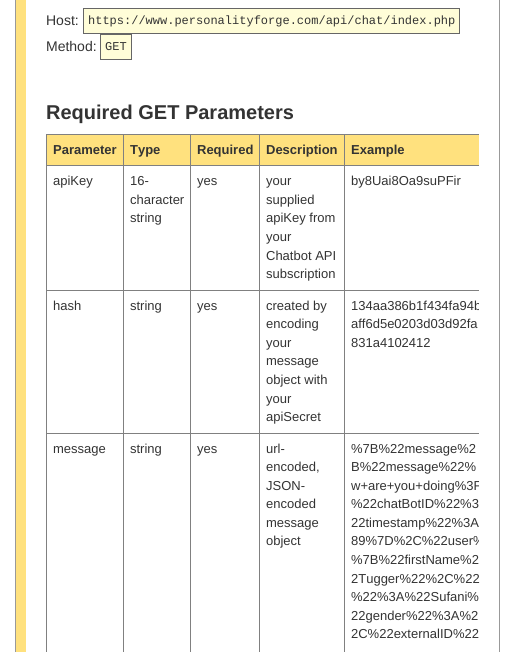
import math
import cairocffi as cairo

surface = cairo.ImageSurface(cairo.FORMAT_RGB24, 515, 652)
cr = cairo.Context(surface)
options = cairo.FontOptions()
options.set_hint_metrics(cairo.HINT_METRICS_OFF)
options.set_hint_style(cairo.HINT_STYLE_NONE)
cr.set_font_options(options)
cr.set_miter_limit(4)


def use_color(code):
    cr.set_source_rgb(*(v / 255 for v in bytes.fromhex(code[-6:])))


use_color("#ffffff")
cr.paint()
cr.rectangle(15.5, -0.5, 484, 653)
use_color("#999999")
cr.set_line_width(1)
cr.stroke()
use_color("#ffe17e")
cr.rectangle(16, 0, 10, 652)
cr.fill()
cr.select_font_face("Liberation Sans")
cr.set_font_size(14)
use_color("#333333")
cr.move_to(46, 25)
cr.show_text("Host:")
use_color("#fffdd8")
cr.rectangle(83.5, 8.5, 376, 25)
cr.fill_preserve()
use_color("#666666")
cr.stroke()
cr.select_font_face("Liberation Mono")
cr.set_font_size(12)
use_color("#333333")
cr.move_to(88, 24)
cr.show_text("https://www.personalityforge.com/api/chat/index.php")
cr.select_font_face("Liberation Sans")
cr.set_font_size(14)
cr.move_to(46, 51)
cr.show_text("Method:")
use_color("#fffdd8")
cr.rectangle(100.5, 34.5, 31, 25)
cr.fill_preserve()
use_color("#666666")
cr.stroke()
cr.select_font_face("Liberation Mono")
cr.set_font_size(12)
use_color("#333333")
cr.move_to(105, 50)
cr.show_text("GET")
cr.select_font_face("Liberation Sans", cairo.FONT_SLANT_NORMAL, cairo.FONT_WEIGHT_BOLD)
cr.set_font_size(20)
cr.move_to(46, 119)
cr.show_text("Required GET Parameters")
use_color("#808080")
cr.rectangle(46, 134, 433, 1)
cr.fill()
cr.rectangle(46, 134, 1, 518)
cr.fill()
use_color("#ffe17e")
cr.rectangle(47, 135, 76, 30)
cr.fill()
cr.set_font_size(13)
use_color("#333333")
cr.move_to(53, 154)
cr.show_text("Parameter")
use_color("#ffe17e")
cr.rectangle(124, 135, 66, 30)
cr.fill()
use_color("#808080")
cr.rectangle(344, 165, 135, 1)
cr.fill()
cr.rectangle(344, 290, 135, 1)
cr.fill()
cr.rectangle(344, 433, 135, 1)
cr.fill()
cr.rectangle(344, 433, 1, 219)
cr.fill()
cr.rectangle(259, 433, 86, 1)
cr.fill()
cr.rectangle(344, 290, 1, 144)
cr.fill()
cr.rectangle(259, 290, 86, 1)
cr.fill()
cr.rectangle(344, 165, 1, 126)
cr.fill()
cr.rectangle(259, 165, 86, 1)
cr.fill()
cr.rectangle(259, 433, 1, 219)
cr.fill()
cr.rectangle(190, 433, 70, 1)
cr.fill()
cr.rectangle(259, 290, 1, 144)
cr.fill()
cr.rectangle(190, 290, 70, 1)
cr.fill()
cr.rectangle(259, 165, 1, 126)
cr.fill()
cr.rectangle(190, 165, 70, 1)
cr.fill()
cr.rectangle(190, 433, 1, 219)
cr.fill()
cr.rectangle(123, 433, 68, 1)
cr.fill()
cr.rectangle(190, 290, 1, 144)
cr.fill()
cr.rectangle(123, 290, 68, 1)
cr.fill()
cr.rectangle(190, 165, 1, 126)
cr.fill()
cr.rectangle(123, 165, 68, 1)
cr.fill()
cr.rectangle(123, 433, 1, 219)
cr.fill()
cr.rectangle(46, 433, 78, 1)
cr.fill()
cr.rectangle(123, 290, 1, 144)
cr.fill()
cr.rectangle(46, 290, 78, 1)
cr.fill()
cr.rectangle(123, 165, 1, 126)
cr.fill()
cr.rectangle(46, 165, 78, 1)
cr.fill()
cr.rectangle(123, 134, 1, 32)
cr.fill()
use_color("#333333")
cr.move_to(130, 154)
cr.show_text("Type")
use_color("#ffe17e")
cr.rectangle(191, 135, 68, 30)
cr.fill()
use_color("#808080")
cr.rectangle(190, 134, 1, 32)
cr.fill()
use_color("#333333")
cr.move_to(197, 154)
cr.show_text("Required")
use_color("#ffe17e")
cr.rectangle(260, 135, 84, 30)
cr.fill()
use_color("#808080")
cr.rectangle(259, 134, 1, 32)
cr.fill()
use_color("#333333")
cr.move_to(266, 154)
cr.show_text("Description")
use_color("#ffe17e")
cr.rectangle(345, 135, 134, 30)
cr.fill()
use_color("#808080")
cr.rectangle(344, 134, 1, 32)
cr.fill()
use_color("#333333")
cr.move_to(351, 154)
cr.show_text("Example")
cr.select_font_face("Liberation Sans")
cr.move_to(53, 185)
cr.show_text("apiKey")
cr.move_to(130, 185)
cr.show_text("16-")
cr.move_to(130, 204)
cr.show_text("character")
cr.move_to(130, 222)
cr.show_text("string")
cr.move_to(197, 185)
cr.show_text("yes")
cr.move_to(266, 185)
cr.show_text("your")
cr.move_to(266, 204)
cr.show_text("supplied")
cr.move_to(266, 222)
cr.show_text("apiKey from")
cr.move_to(266, 241)
cr.show_text("your")
cr.move_to(266, 260)
cr.show_text("Chatbot API")
cr.move_to(266, 278)
cr.show_text("subscription")
cr.move_to(351, 185)
cr.show_text("by8Uai8Oa9suPFir")
cr.move_to(53, 310)
cr.show_text("hash")
cr.move_to(130, 310)
cr.show_text("string")
cr.move_to(197, 310)
cr.show_text("yes")
cr.move_to(266, 310)
cr.show_text("created by")
cr.move_to(266, 328)
cr.show_text("encoding")
cr.move_to(266, 347)
cr.show_text("your")
cr.move_to(266, 365)
cr.show_text("message")
cr.move_to(266, 384)
cr.show_text("object with")
cr.move_to(266, 403)
cr.show_text("your")
cr.move_to(266, 421)
cr.show_text("apiSecret")
cr.save()
cr.rectangle(46, 134, 433, 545)
cr.clip()
cr.move_to(351, 310)
cr.show_text("134aa386b1f434fa94b")
cr.restore()
cr.move_to(351, 328)
cr.show_text("aff6d5e0203d03d92fa")
cr.move_to(351, 347)
cr.show_text("831a4102412")
cr.move_to(53, 453)
cr.show_text("message")
cr.move_to(130, 453)
cr.show_text("string")
cr.move_to(197, 453)
cr.show_text("yes")
cr.move_to(266, 453)
cr.show_text("url-")
cr.move_to(266, 471)
cr.show_text("encoded,")
cr.move_to(266, 490)
cr.show_text("JSON-")
cr.move_to(266, 508)
cr.show_text("encoded")
cr.move_to(266, 527)
cr.show_text("message")
cr.move_to(266, 545)
cr.show_text("object")
cr.move_to(351, 453)
cr.show_text("%7B%22message%2")
cr.move_to(351, 471)
cr.show_text("B%22message%22%")
cr.save()
cr.rectangle(46, 134, 433, 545)
cr.clip()
cr.move_to(351, 490)
cr.show_text("w+are+you+doing%3F")
cr.restore()
cr.move_to(351, 508)
cr.show_text("%22chatBotID%22%3")
cr.move_to(351, 527)
cr.show_text("22timestamp%22%3A")
cr.save()
cr.rectangle(46, 134, 433, 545)
cr.clip()
cr.move_to(351, 545)
cr.show_text("89%7D%2C%22user%")
cr.restore()
cr.move_to(351, 564)
cr.show_text("%7B%22firstName%2")
cr.move_to(351, 583)
cr.show_text("2Tugger%22%2C%22")
cr.move_to(351, 601)
cr.show_text("%22%3A%22Sufani%")
cr.move_to(351, 620)
cr.show_text("22gender%22%3A%2")
cr.move_to(351, 638)
cr.show_text("2C%22externalID%22")
surface.write_to_png("result.png")
